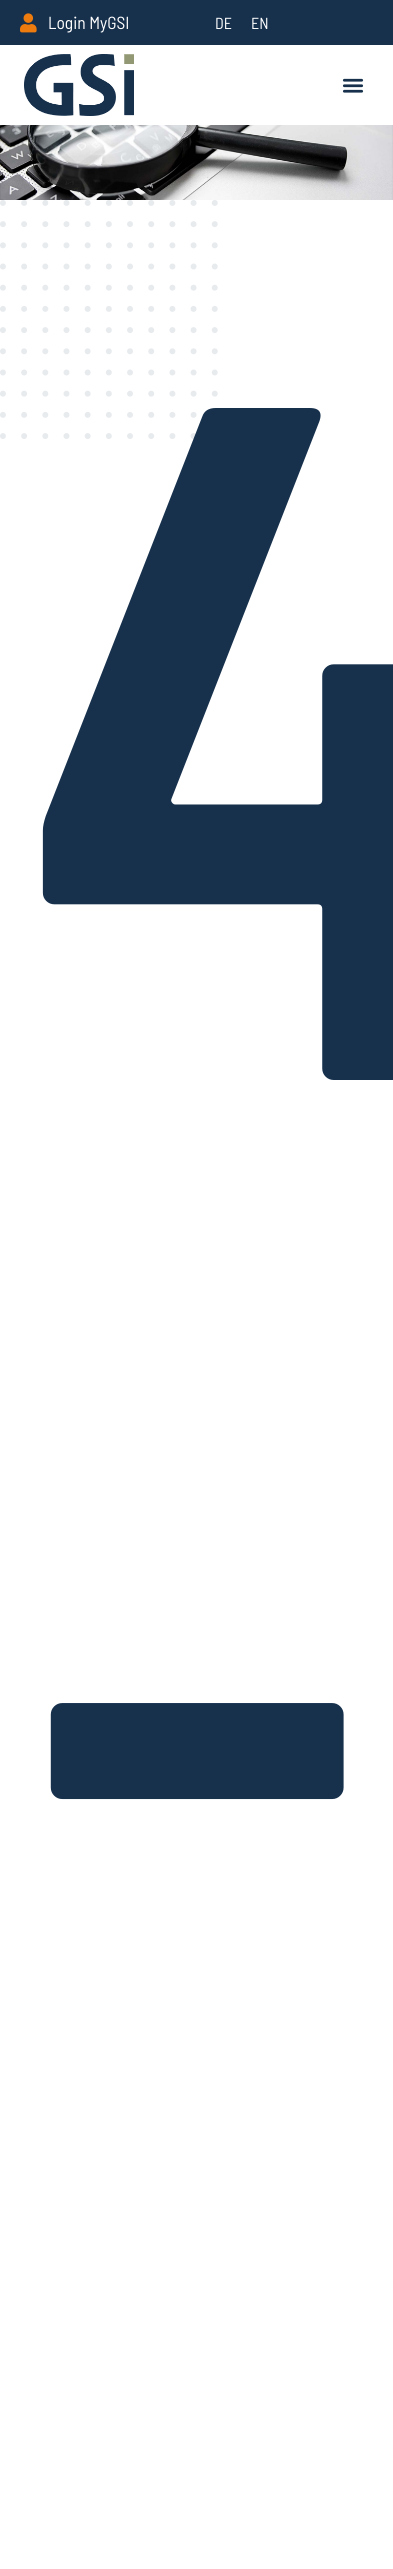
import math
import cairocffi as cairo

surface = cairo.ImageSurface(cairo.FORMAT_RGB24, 393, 2569)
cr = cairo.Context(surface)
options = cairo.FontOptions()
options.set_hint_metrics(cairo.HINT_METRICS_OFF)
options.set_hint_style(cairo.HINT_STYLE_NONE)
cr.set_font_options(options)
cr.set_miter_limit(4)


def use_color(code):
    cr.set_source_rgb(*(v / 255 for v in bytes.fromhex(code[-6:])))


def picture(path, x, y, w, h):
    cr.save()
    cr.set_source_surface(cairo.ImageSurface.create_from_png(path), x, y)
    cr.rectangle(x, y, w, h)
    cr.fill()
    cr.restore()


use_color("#ffffff")
cr.paint()
use_color("#17314d")
cr.rectangle(0, 0, 393, 45)
cr.fill()
picture("img1.png", 20, 13, 17, 20)
cr.select_font_face("Barlow Semi Condensed")
cr.set_font_size(17.5)
use_color("#ffffff")
cr.move_to(48, 29)
cr.show_text("Login MyGSI")
cr.set_font_size(16)
cr.move_to(215, 29)
cr.show_text("DE")
cr.move_to(251, 29)
cr.show_text("EN")
picture("img2.png", 24, 54, 110, 62)
picture("img3.png", 342, 78, 22, 15)
picture("img4.png", 0, 125, 393, 75)
picture("img5.png", 0, 200, 218, 239)
cr.select_font_face("Barlow Semi Condensed SemiBold")
cr.set_font_size(960)
use_color("#17314d")
cr.move_to(16, 1080)
cr.show_text("4")
cr.move_to(22, 2040)
cr.show_text("-")
surface.write_to_png("result.png")
